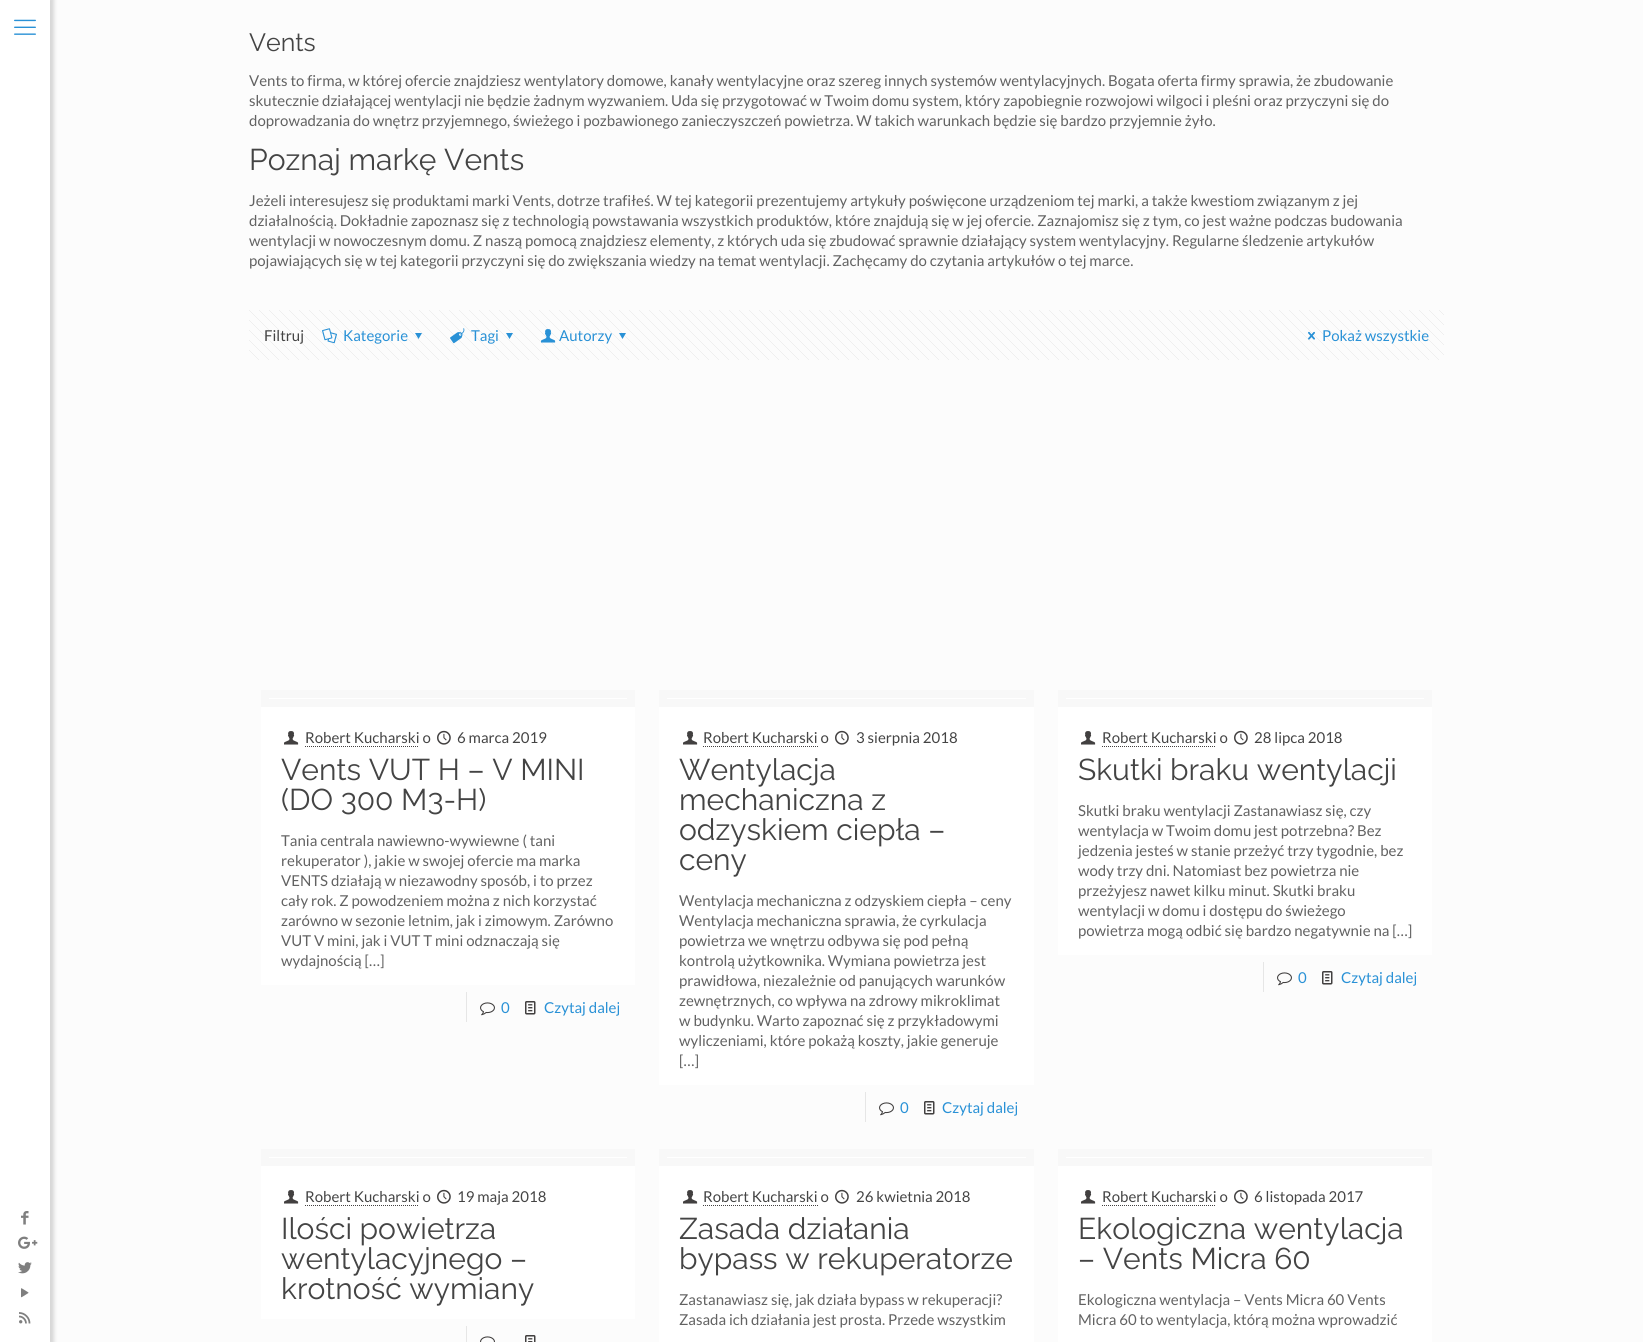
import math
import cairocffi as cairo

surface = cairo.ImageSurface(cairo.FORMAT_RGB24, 1643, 1342)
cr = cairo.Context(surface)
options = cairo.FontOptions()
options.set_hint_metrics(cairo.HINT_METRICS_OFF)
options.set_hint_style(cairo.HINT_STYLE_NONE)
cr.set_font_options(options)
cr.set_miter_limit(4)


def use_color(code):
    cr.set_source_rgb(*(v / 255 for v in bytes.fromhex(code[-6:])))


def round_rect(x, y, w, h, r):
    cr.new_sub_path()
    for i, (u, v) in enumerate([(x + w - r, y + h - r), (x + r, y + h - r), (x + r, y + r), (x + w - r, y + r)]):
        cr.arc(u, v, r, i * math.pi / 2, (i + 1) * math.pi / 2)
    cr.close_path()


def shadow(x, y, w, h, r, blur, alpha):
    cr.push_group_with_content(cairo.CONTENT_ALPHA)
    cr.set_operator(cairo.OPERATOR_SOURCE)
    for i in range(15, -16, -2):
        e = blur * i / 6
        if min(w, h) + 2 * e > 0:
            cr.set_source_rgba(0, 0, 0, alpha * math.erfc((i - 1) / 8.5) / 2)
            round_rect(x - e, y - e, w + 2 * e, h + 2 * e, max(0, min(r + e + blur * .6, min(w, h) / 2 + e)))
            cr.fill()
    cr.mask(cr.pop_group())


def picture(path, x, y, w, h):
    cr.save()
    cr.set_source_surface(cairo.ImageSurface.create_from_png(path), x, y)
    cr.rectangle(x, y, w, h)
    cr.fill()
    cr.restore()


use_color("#fcfcfc")
cr.paint()
use_color("#000000")
shadow(-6, -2, 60, 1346, 0, 2, 0.15)
use_color("#ffffff")
cr.rectangle(0, 0, 50, 1342)
cr.fill()
picture("img1.png", 14, 19, 22, 16)
picture("img2.png", 21, 1211, 8, 14)
picture("img3.png", 18, 1236, 20, 13)
picture("img4.png", 18, 1262, 14, 12)
picture("img5.png", 21, 1288, 8, 10)
picture("img6.png", 19, 1312, 12, 12)
cr.select_font_face("Raleway")
cr.set_font_size(25)
use_color("#444444")
cr.move_to(249, 51)
cr.show_text("Vents")
cr.select_font_face("Lato")
cr.set_font_size(15)
use_color("#626262")
cr.move_to(249, 86)
cr.show_text("Vents to firma, w której ofercie znajdziesz wentylatory domowe, kanały wentylacyjne oraz szereg innych systemów wentylacyjnych. Bogata oferta firmy sprawia, że zbudowanie")
cr.move_to(249, 106)
cr.show_text("skutecznie działającej wentylacji nie będzie żadnym wyzwaniem. Uda się przygotować w Twoim domu system, który zapobiegnie rozwojowi wilgoci i pleśni oraz przyczyni się do")
cr.move_to(249, 126)
cr.show_text("doprowadzania do wnętrz przyjemnego, świeżego i pozbawionego zanieczyszczeń powietrza. W takich warunkach będzie się bardzo przyjemnie żyło.")
cr.select_font_face("Raleway")
cr.set_font_size(30)
use_color("#444444")
cr.move_to(249, 170)
cr.show_text("Poznaj markę Vents")
cr.select_font_face("Lato")
cr.set_font_size(15)
use_color("#626262")
cr.move_to(249, 206)
cr.show_text("Jeżeli interesujesz się produktami marki Vents, dotrze trafiłeś. W tej kategorii prezentujemy artykuły poświęcone urządzeniom tej marki, a także kwestiom związanym z jej")
cr.move_to(249, 226)
cr.show_text("działalnością. Dokładnie zapoznasz się z technologią powstawania wszystkich produktów, które znajdują się w jej ofercie. Zaznajomisz się z tym, co jest ważne podczas budowania")
cr.move_to(249, 246)
cr.show_text("wentylacji w nowoczesnym domu. Z naszą pomocą znajdziesz elementy, z których uda się zbudować sprawnie działający system wentylacyjny. Regularne śledzenie artykułów")
cr.move_to(249, 266)
cr.show_text("pojawiających się w tej kategorii przyczyni się do zwiększania wiedzy na temat wentylacji. Zachęcamy do czytania artykułów o tej marce.")
picture("img7.png", 249, 310, 1195, 50)
use_color("#444444")
cr.move_to(264, 341)
cr.show_text("Filtruj")
picture("img8.png", 322, 328, 15, 16)
use_color("#2991d6")
cr.move_to(343, 341)
cr.show_text("Kategorie")
cr.new_path()
cr.move_to(422, 333)
cr.line_to(418.5, 339)
cr.line_to(415, 333)
cr.close_path()
cr.fill()
picture("img9.png", 450, 328, 15, 16)
cr.move_to(471, 341)
cr.show_text("Tagi")
cr.new_path()
cr.move_to(513, 333)
cr.line_to(509.5, 339)
cr.line_to(506, 333)
cr.close_path()
cr.fill()
picture("img10.png", 541, 329, 15, 14)
cr.move_to(559, 341)
cr.show_text("Autorzy")
cr.new_path()
cr.move_to(626, 333)
cr.line_to(622.5, 339)
cr.line_to(619, 333)
cr.close_path()
cr.fill()
picture("img11.png", 1308, 331, 7, 9)
cr.move_to(1322, 341)
cr.show_text("Pokaż wszystkie")
use_color("#ffffff")
cr.rectangle(261, 698, 374, 287)
cr.fill()
cr.rectangle(265, 694, 366, 9)
use_color("#f8f8f8")
cr.set_line_width(8)
cr.stroke()
picture("img12.png", 284, 731, 15, 14)
use_color("#444444")
cr.move_to(305, 743)
cr.show_text("Robert Kucharski o")
cr.new_path()
cr.move_to(305, 746.5)
cr.line_to(419, 746.5)
use_color("#424040")
cr.set_line_width(1)
cr.set_dash([1, 1])
cr.stroke()
picture("img13.png", 437, 730, 14, 15)
use_color("#444444")
cr.move_to(457, 743)
cr.show_text("6 marca 2019")
cr.select_font_face("Raleway")
cr.set_font_size(30)
cr.move_to(281, 780)
cr.show_text("Vents VUT H – V MINI")
cr.move_to(281, 810)
cr.show_text("(DO 300 M3-H)")
cr.select_font_face("Lato")
cr.set_font_size(15)
use_color("#626262")
cr.move_to(281, 846)
cr.show_text("Tania centrala nawiewno-wywiewne ( tani")
cr.move_to(281, 866)
cr.show_text("rekuperator ), jakie w swojej ofercie ma marka")
cr.move_to(281, 886)
cr.show_text("VENTS działają w niezawodny sposób, i to przez")
cr.move_to(281, 906)
cr.show_text("cały rok. Z powodzeniem można z nich korzystać")
cr.move_to(281, 926)
cr.show_text("zarówno w sezonie letnim, jak i zimowym. Zarówno")
cr.move_to(281, 946)
cr.show_text("VUT V mini, jak i VUT T mini odznaczają się")
cr.move_to(281, 966)
cr.show_text("wydajnością […]")
use_color("#e6e6e6")
cr.rectangle(466, 992, 1, 30)
cr.fill()
picture("img14.png", 480, 1002, 15, 14)
use_color("#2991d6")
cr.move_to(501, 1013)
cr.show_text("0")
picture("img15.png", 525, 1001, 11, 14)
cr.move_to(544, 1013)
cr.show_text("Czytaj dalej")
use_color("#ffffff")
cr.rectangle(659, 698, 375, 387)
cr.fill()
cr.rectangle(663, 694, 367, 9)
use_color("#f8f8f8")
cr.set_line_width(8)
cr.set_dash([])
cr.stroke()
picture("img12.png", 683, 731, 15, 14)
use_color("#444444")
cr.move_to(703, 743)
cr.show_text("Robert Kucharski o")
cr.new_path()
cr.move_to(703, 746.5)
cr.line_to(818, 746.5)
use_color("#424040")
cr.set_line_width(1)
cr.set_dash([1, 1])
cr.stroke()
picture("img13.png", 835, 730, 14, 15)
use_color("#444444")
cr.move_to(856, 743)
cr.show_text("3 sierpnia 2018")
cr.select_font_face("Raleway")
cr.set_font_size(30)
cr.move_to(679, 780)
cr.show_text("Wentylacja")
cr.move_to(679, 810)
cr.show_text("mechaniczna z")
cr.move_to(679, 840)
cr.show_text("odzyskiem ciepła –")
cr.move_to(679, 870)
cr.show_text("ceny")
cr.select_font_face("Lato")
cr.set_font_size(15)
use_color("#626262")
cr.move_to(679, 906)
cr.show_text("Wentylacja mechaniczna z odzyskiem ciepła – ceny")
cr.move_to(679, 926)
cr.show_text("Wentylacja mechaniczna sprawia, że cyrkulacja")
cr.move_to(679, 946)
cr.show_text("powietrza we wnętrzu odbywa się pod pełną")
cr.move_to(679, 966)
cr.show_text("kontrolą użytkownika. Wymiana powietrza jest")
cr.move_to(679, 986)
cr.show_text("prawidłowa, niezależnie od panujących warunków")
cr.move_to(679, 1006)
cr.show_text("zewnętrznych, co wpływa na zdrowy mikroklimat")
cr.move_to(679, 1026)
cr.show_text("w budynku. Warto zapoznać się z przykładowymi")
cr.move_to(679, 1046)
cr.show_text("wyliczeniami, które pokażą koszty, jakie generuje")
cr.move_to(679, 1066)
cr.show_text("[…]")
use_color("#e6e6e6")
cr.rectangle(865, 1092, 1, 30)
cr.fill()
picture("img14.png", 879, 1102, 15, 14)
use_color("#2991d6")
cr.move_to(900, 1113)
cr.show_text("0")
picture("img15.png", 924, 1101, 11, 14)
cr.move_to(942, 1113)
cr.show_text("Czytaj dalej")
use_color("#ffffff")
cr.rectangle(1058, 698, 374, 257)
cr.fill()
cr.rectangle(1062, 694, 366, 9)
use_color("#f8f8f8")
cr.set_line_width(8)
cr.set_dash([])
cr.stroke()
picture("img12.png", 1081, 731, 15, 14)
use_color("#444444")
cr.move_to(1102, 743)
cr.show_text("Robert Kucharski o")
cr.new_path()
cr.move_to(1102, 746.5)
cr.line_to(1216, 746.5)
use_color("#424040")
cr.set_line_width(1)
cr.set_dash([1, 1])
cr.stroke()
picture("img13.png", 1234, 730, 14, 15)
use_color("#444444")
cr.move_to(1254, 743)
cr.show_text("28 lipca 2018")
cr.select_font_face("Raleway")
cr.set_font_size(30)
cr.move_to(1078, 780)
cr.show_text("Skutki braku wentylacji")
cr.select_font_face("Lato")
cr.set_font_size(15)
use_color("#626262")
cr.move_to(1078, 816)
cr.show_text("Skutki braku wentylacji Zastanawiasz się, czy")
cr.move_to(1078, 836)
cr.show_text("wentylacja w Twoim domu jest potrzebna? Bez")
cr.move_to(1078, 856)
cr.show_text("jedzenia jesteś w stanie przeżyć trzy tygodnie, bez")
cr.move_to(1078, 876)
cr.show_text("wody trzy dni. Natomiast bez powietrza nie")
cr.move_to(1078, 896)
cr.show_text("przeżyjesz nawet kilku minut. Skutki braku")
cr.move_to(1078, 916)
cr.show_text("wentylacji w domu i dostępu do świeżego")
cr.move_to(1078, 936)
cr.show_text("powietrza mogą odbić się bardzo negatywnie na […]")
use_color("#e6e6e6")
cr.rectangle(1263, 962, 1, 30)
cr.fill()
picture("img14.png", 1277, 972, 15, 14)
use_color("#2991d6")
cr.move_to(1298, 983)
cr.show_text("0")
picture("img15.png", 1322, 971, 11, 14)
cr.move_to(1341, 983)
cr.show_text("Czytaj dalej")
use_color("#ffffff")
cr.rectangle(261, 1157, 374, 162)
cr.fill()
cr.rectangle(265, 1153, 366, 9)
use_color("#f8f8f8")
cr.set_line_width(8)
cr.set_dash([])
cr.stroke()
picture("img12.png", 284, 1190, 15, 14)
use_color("#444444")
cr.move_to(305, 1202)
cr.show_text("Robert Kucharski o")
cr.new_path()
cr.move_to(305, 1205.5)
cr.line_to(419, 1205.5)
use_color("#424040")
cr.set_line_width(1)
cr.set_dash([1, 1])
cr.stroke()
picture("img13.png", 437, 1189, 14, 15)
use_color("#444444")
cr.move_to(457, 1202)
cr.show_text("19 maja 2018")
cr.select_font_face("Raleway")
cr.set_font_size(30)
cr.move_to(281, 1239)
cr.show_text("Ilości powietrza")
cr.move_to(281, 1269)
cr.show_text("wentylacyjnego –")
cr.move_to(281, 1299)
cr.show_text("krotność wymiany")
use_color("#e6e6e6")
cr.rectangle(466, 1326, 1, 16)
cr.fill()
picture("img16.png", 480, 1336, 15, 6)
picture("img17.png", 525, 1335, 11, 7)
use_color("#ffffff")
cr.rectangle(659, 1157, 375, 185)
cr.fill()
cr.rectangle(663, 1153, 367, 9)
use_color("#f8f8f8")
cr.set_line_width(8)
cr.set_dash([])
cr.stroke()
picture("img12.png", 683, 1190, 15, 14)
cr.select_font_face("Lato")
cr.set_font_size(15)
use_color("#444444")
cr.move_to(703, 1202)
cr.show_text("Robert Kucharski o")
cr.new_path()
cr.move_to(703, 1205.5)
cr.line_to(818, 1205.5)
use_color("#424040")
cr.set_line_width(1)
cr.set_dash([1, 1])
cr.stroke()
picture("img13.png", 835, 1189, 14, 15)
use_color("#444444")
cr.move_to(856, 1202)
cr.show_text("26 kwietnia 2018")
cr.select_font_face("Raleway")
cr.set_font_size(30)
cr.move_to(679, 1239)
cr.show_text("Zasada działania")
cr.move_to(679, 1269)
cr.show_text("bypass w rekuperatorze")
cr.select_font_face("Lato")
cr.set_font_size(15)
use_color("#626262")
cr.move_to(679, 1305)
cr.show_text("Zastanawiasz się, jak działa bypass w rekuperacji?")
cr.move_to(679, 1325)
cr.show_text("Zasada ich działania jest prosta. Przede wszystkim")
use_color("#ffffff")
cr.rectangle(1058, 1157, 374, 185)
cr.fill()
cr.rectangle(1062, 1153, 366, 9)
use_color("#f8f8f8")
cr.set_line_width(8)
cr.set_dash([])
cr.stroke()
picture("img12.png", 1081, 1190, 15, 14)
use_color("#444444")
cr.move_to(1102, 1202)
cr.show_text("Robert Kucharski o")
cr.new_path()
cr.move_to(1102, 1205.5)
cr.line_to(1216, 1205.5)
use_color("#424040")
cr.set_line_width(1)
cr.set_dash([1, 1])
cr.stroke()
picture("img13.png", 1234, 1189, 14, 15)
use_color("#444444")
cr.move_to(1254, 1202)
cr.show_text("6 listopada 2017")
cr.select_font_face("Raleway")
cr.set_font_size(30)
cr.move_to(1078, 1239)
cr.show_text("Ekologiczna wentylacja")
cr.move_to(1078, 1269)
cr.show_text("– Vents Micra 60")
cr.select_font_face("Lato")
cr.set_font_size(15)
use_color("#626262")
cr.move_to(1078, 1305)
cr.show_text("Ekologiczna wentylacja – Vents Micra 60 Vents")
cr.move_to(1078, 1325)
cr.show_text("Micra 60 to wentylacja, którą można wprowadzić")
surface.write_to_png("result.png")
